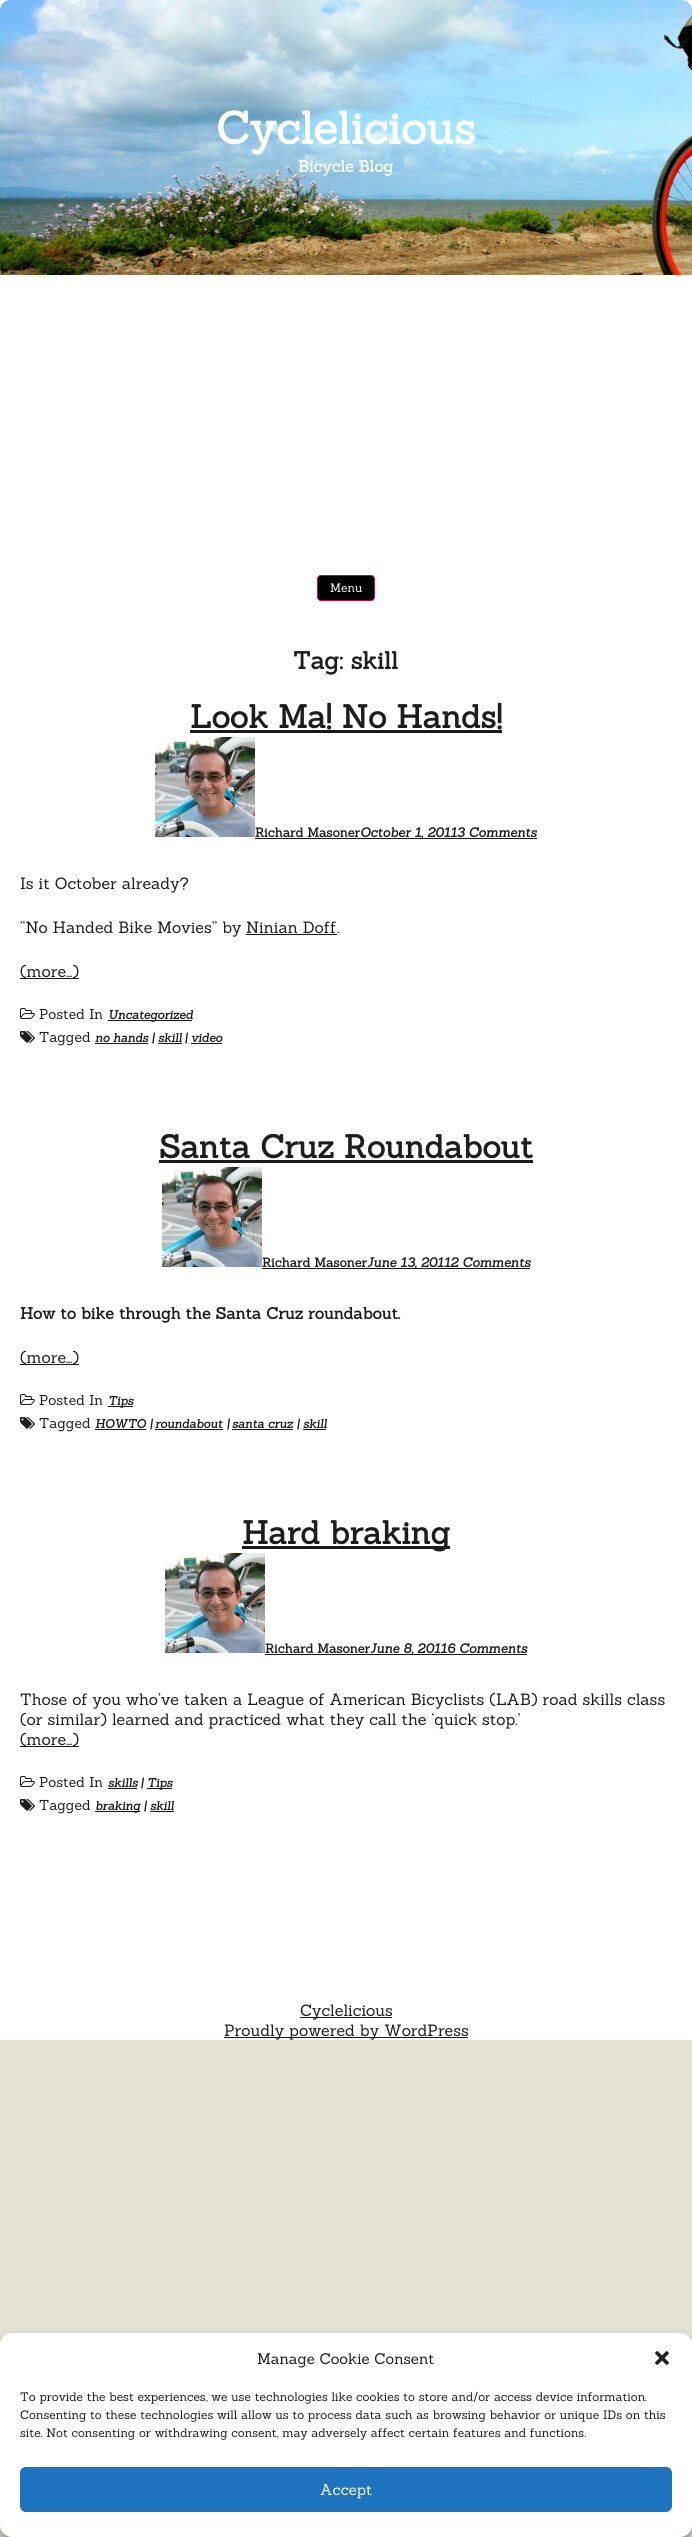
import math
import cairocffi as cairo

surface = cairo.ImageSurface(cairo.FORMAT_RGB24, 692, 2537)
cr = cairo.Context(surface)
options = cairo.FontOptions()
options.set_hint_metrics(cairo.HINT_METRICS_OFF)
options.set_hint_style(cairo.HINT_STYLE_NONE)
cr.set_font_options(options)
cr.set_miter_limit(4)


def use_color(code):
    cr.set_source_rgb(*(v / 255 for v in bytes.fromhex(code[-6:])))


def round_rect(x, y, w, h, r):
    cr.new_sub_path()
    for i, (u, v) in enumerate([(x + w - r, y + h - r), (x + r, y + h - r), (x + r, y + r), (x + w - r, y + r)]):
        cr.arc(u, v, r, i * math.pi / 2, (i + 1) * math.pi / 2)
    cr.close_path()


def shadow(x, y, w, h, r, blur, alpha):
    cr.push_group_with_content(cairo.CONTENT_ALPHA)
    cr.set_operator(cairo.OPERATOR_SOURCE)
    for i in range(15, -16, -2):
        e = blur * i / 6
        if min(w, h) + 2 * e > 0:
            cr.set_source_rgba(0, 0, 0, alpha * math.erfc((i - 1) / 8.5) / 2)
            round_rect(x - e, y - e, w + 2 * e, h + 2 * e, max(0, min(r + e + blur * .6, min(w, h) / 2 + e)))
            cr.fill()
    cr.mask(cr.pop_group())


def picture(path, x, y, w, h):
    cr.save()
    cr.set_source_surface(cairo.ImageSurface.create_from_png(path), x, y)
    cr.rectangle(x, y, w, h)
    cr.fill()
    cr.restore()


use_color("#e6e3d4")
cr.paint()
use_color("#ffffff")
cr.rectangle(0, 0, 692, 2040)
cr.fill()
picture("img1.png", 0, 0, 692, 275)
cr.select_font_face("Sanchez", cairo.FONT_SLANT_NORMAL, cairo.FONT_WEIGHT_BOLD)
cr.set_font_size(44.75)
cr.move_to(216, 144)
cr.show_text("Cyclelicious")
cr.set_font_size(16)
cr.move_to(298, 172)
cr.show_text("Bicycle Blog")
use_color("#000000")
round_rect(317.5, 575.5, 57, 25, 3.5)
cr.fill_preserve()
use_color("#cc0058")
cr.set_line_width(1)
cr.stroke()
cr.select_font_face("Sanchez")
cr.set_font_size(12)
use_color("#ffffff")
cr.move_to(330, 592)
cr.show_text("Menu")
cr.select_font_face("Sanchez", cairo.FONT_SLANT_NORMAL, cairo.FONT_WEIGHT_BOLD)
cr.set_font_size(24)
use_color("#1d1d1d")
cr.move_to(293, 669)
cr.show_text("Tag: skill")
cr.set_font_size(32)
cr.move_to(190, 728)
cr.show_text("Look Ma! No Hands!")
use_color("#1a1a1a")
cr.rectangle(190, 730, 312, 3)
cr.fill()
picture("img2.png", 155, 737, 100, 100)
cr.set_font_size(12.75)
use_color("#1d1d1d")
cr.move_to(255, 837)
cr.show_text("Richard Masoner")
use_color("#1a1a1a")
cr.rectangle(255, 838, 282, 1)
cr.fill()
cr.select_font_face("Sanchez", cairo.FONT_SLANT_ITALIC, cairo.FONT_WEIGHT_BOLD)
cr.set_font_size(13)
use_color("#1d1d1d")
cr.move_to(360, 837)
cr.show_text("October 1, 20113 Comments")
cr.select_font_face("Sanchez")
cr.set_font_size(16)
cr.move_to(20, 889)
cr.show_text("Is it October already?")
cr.move_to(20, 933)
cr.show_text("“No Handed Bike Movies” by")
cr.move_to(246, 933)
cr.show_text("Ninian Doff")
use_color("#1a1a1a")
cr.rectangle(246, 934, 91, 1)
cr.fill()
use_color("#1d1d1d")
cr.move_to(337, 933)
cr.show_text(".")
use_color("#1a1a1a")
cr.rectangle(20, 978, 59, 1)
cr.fill()
use_color("#1d1d1d")
cr.move_to(20, 977)
cr.show_text("(more…)")
picture("img3.png", 20, 1008, 15, 11)
cr.set_font_size(14)
cr.move_to(39, 1019)
cr.show_text("Posted In")
use_color("#1a1a1a")
cr.rectangle(108, 1020, 84, 1)
cr.fill()
cr.select_font_face("Sanchez", cairo.FONT_SLANT_ITALIC, cairo.FONT_WEIGHT_BOLD)
cr.set_font_size(12)
use_color("#1d1d1d")
cr.move_to(108, 1019)
cr.show_text("Uncategorized")
picture("img4.png", 20, 1031, 15, 12)
cr.select_font_face("Sanchez")
cr.set_font_size(14)
cr.move_to(39, 1042)
cr.show_text("Tagged")
cr.select_font_face("Sanchez", cairo.FONT_SLANT_ITALIC, cairo.FONT_WEIGHT_BOLD)
cr.set_font_size(12)
cr.move_to(95, 1042)
cr.show_text("no hands")
use_color("#1a1a1a")
cr.rectangle(95, 1043, 53, 1)
cr.fill()
use_color("#1d1d1d")
cr.move_to(152, 1042)
cr.show_text("|")
cr.move_to(158, 1042)
cr.show_text("skill")
use_color("#1a1a1a")
cr.rectangle(158, 1043, 24, 1)
cr.fill()
use_color("#1d1d1d")
cr.move_to(185, 1042)
cr.show_text("|")
cr.move_to(191, 1042)
cr.show_text("video")
use_color("#1a1a1a")
cr.rectangle(191, 1043, 31, 1)
cr.fill()
cr.select_font_face("Sanchez", cairo.FONT_SLANT_NORMAL, cairo.FONT_WEIGHT_BOLD)
cr.set_font_size(32)
use_color("#1d1d1d")
cr.move_to(159, 1158)
cr.show_text("Santa Cruz Roundabout")
use_color("#1a1a1a")
cr.rectangle(159, 1160, 374, 3)
cr.fill()
picture("img2.png", 162, 1167, 100, 100)
cr.set_font_size(12.75)
use_color("#1d1d1d")
cr.move_to(262, 1267)
cr.show_text("Richard Masoner")
use_color("#1a1a1a")
cr.rectangle(262, 1268, 268, 1)
cr.fill()
cr.select_font_face("Sanchez", cairo.FONT_SLANT_ITALIC, cairo.FONT_WEIGHT_BOLD)
cr.set_font_size(13)
use_color("#1d1d1d")
cr.move_to(367, 1267)
cr.show_text("June 13, 20112 Comments")
cr.select_font_face("Sanchez", cairo.FONT_SLANT_NORMAL, cairo.FONT_WEIGHT_BOLD)
cr.set_font_size(16)
cr.move_to(20, 1319)
cr.show_text("How to bike through the Santa Cruz roundabout.")
use_color("#1a1a1a")
cr.rectangle(20, 1364, 59, 1)
cr.fill()
cr.select_font_face("Sanchez")
use_color("#1d1d1d")
cr.move_to(20, 1363)
cr.show_text("(more…)")
picture("img3.png", 20, 1394, 15, 11)
cr.set_font_size(14)
cr.move_to(39, 1405)
cr.show_text("Posted In")
use_color("#1a1a1a")
cr.rectangle(108, 1406, 25, 1)
cr.fill()
cr.select_font_face("Sanchez", cairo.FONT_SLANT_ITALIC, cairo.FONT_WEIGHT_BOLD)
cr.set_font_size(12)
use_color("#1d1d1d")
cr.move_to(108, 1405)
cr.show_text("Tips")
picture("img4.png", 20, 1417, 15, 12)
cr.select_font_face("Sanchez")
cr.set_font_size(14)
cr.move_to(39, 1428)
cr.show_text("Tagged")
cr.select_font_face("Sanchez", cairo.FONT_SLANT_ITALIC, cairo.FONT_WEIGHT_BOLD)
cr.set_font_size(12)
cr.move_to(95, 1428)
cr.show_text("HOWTO")
use_color("#1a1a1a")
cr.rectangle(95, 1429, 51, 1)
cr.fill()
use_color("#1d1d1d")
cr.move_to(150, 1428)
cr.show_text("|")
cr.move_to(155, 1428)
cr.show_text("roundabout")
use_color("#1a1a1a")
cr.rectangle(155, 1429, 68, 1)
cr.fill()
use_color("#1d1d1d")
cr.move_to(227, 1428)
cr.show_text("|")
cr.move_to(232, 1428)
cr.show_text("santa cruz")
use_color("#1a1a1a")
cr.rectangle(232, 1429, 61, 1)
cr.fill()
use_color("#1d1d1d")
cr.move_to(297, 1428)
cr.show_text("|")
cr.move_to(303, 1428)
cr.show_text("skill")
use_color("#1a1a1a")
cr.rectangle(303, 1429, 23, 1)
cr.fill()
cr.rectangle(242, 1546, 208, 3)
cr.fill()
cr.select_font_face("Sanchez", cairo.FONT_SLANT_NORMAL, cairo.FONT_WEIGHT_BOLD)
cr.set_font_size(32)
use_color("#1d1d1d")
cr.move_to(242, 1544)
cr.show_text("Hard braking")
picture("img2.png", 165, 1553, 100, 100)
cr.set_font_size(12.75)
cr.move_to(265, 1653)
cr.show_text("Richard Masoner")
use_color("#1a1a1a")
cr.rectangle(265, 1654, 262, 1)
cr.fill()
cr.select_font_face("Sanchez", cairo.FONT_SLANT_ITALIC, cairo.FONT_WEIGHT_BOLD)
cr.set_font_size(13)
use_color("#1d1d1d")
cr.move_to(370, 1653)
cr.show_text("June 8, 20116 Comments")
cr.select_font_face("Sanchez")
cr.set_font_size(16)
cr.move_to(20, 1705)
cr.show_text("Those of you who’ve taken a League of American Bicyclists (LAB) road skills class")
cr.move_to(20, 1725)
cr.show_text("(or similar) learned and practiced what they call the ‘quick stop.’")
use_color("#1a1a1a")
cr.rectangle(20, 1746, 59, 1)
cr.fill()
use_color("#1d1d1d")
cr.move_to(20, 1745)
cr.show_text("(more…)")
picture("img3.png", 20, 1776, 15, 11)
cr.set_font_size(14)
cr.move_to(39, 1787)
cr.show_text("Posted In")
cr.select_font_face("Sanchez", cairo.FONT_SLANT_ITALIC, cairo.FONT_WEIGHT_BOLD)
cr.set_font_size(12)
cr.move_to(108, 1787)
cr.show_text("skills")
use_color("#1a1a1a")
cr.rectangle(108, 1788, 29, 1)
cr.fill()
use_color("#1d1d1d")
cr.move_to(141, 1787)
cr.show_text("|")
use_color("#1a1a1a")
cr.rectangle(147, 1788, 25, 1)
cr.fill()
use_color("#1d1d1d")
cr.move_to(147, 1787)
cr.show_text("Tips")
picture("img4.png", 20, 1799, 15, 12)
cr.select_font_face("Sanchez")
cr.set_font_size(14)
cr.move_to(39, 1810)
cr.show_text("Tagged")
use_color("#1a1a1a")
cr.rectangle(95, 1811, 45, 1)
cr.fill()
cr.select_font_face("Sanchez", cairo.FONT_SLANT_ITALIC, cairo.FONT_WEIGHT_BOLD)
cr.set_font_size(12)
use_color("#1d1d1d")
cr.move_to(95, 1810)
cr.show_text("braking")
cr.move_to(144, 1810)
cr.show_text("|")
cr.move_to(150, 1810)
cr.show_text("skill")
use_color("#1a1a1a")
cr.rectangle(150, 1811, 24, 1)
cr.fill()
cr.rectangle(300, 2017, 92, 1)
cr.fill()
cr.select_font_face("Sanchez")
cr.set_font_size(16)
use_color("#1d1d1d")
cr.move_to(300, 2016)
cr.show_text("Cyclelicious")
use_color("#1a1a1a")
cr.rectangle(224, 2037, 244, 1)
cr.fill()
use_color("#1d1d1d")
cr.move_to(224, 2036)
cr.show_text("Proudly powered by WordPress")
use_color("#000000")
shadow(0, 2339, 692, 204, 12, 3, 0.23)
shadow(0, 2343, 692, 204, 12, 10, 0.19)
use_color("#ffffff")
round_rect(0, 2333, 692, 204, 12)
cr.fill()
cr.set_font_size(15)
use_color("#1d1d1d")
cr.move_to(257, 2364)
cr.show_text("Manage Cookie Consent")
picture("img5.png", 655, 2351, 14, 14)
cr.set_font_size(12)
cr.move_to(20, 2401)
cr.show_text("To provide the best experiences, we use technologies like cookies to store and/or access device information.")
cr.move_to(20, 2419)
cr.show_text("Consenting to these technologies will allow us to process data such as browsing behavior or unique IDs on this")
cr.move_to(20, 2437)
cr.show_text("site. Not consenting or withdrawing consent, may adversely affect certain features and functions.")
use_color("#1e73be")
round_rect(20.5, 2467.5, 651, 44, 5.5)
cr.fill_preserve()
cr.stroke()
cr.set_font_size(15)
use_color("#ffffff")
cr.move_to(320, 2495)
cr.show_text("Accept")
surface.write_to_png("result.png")
